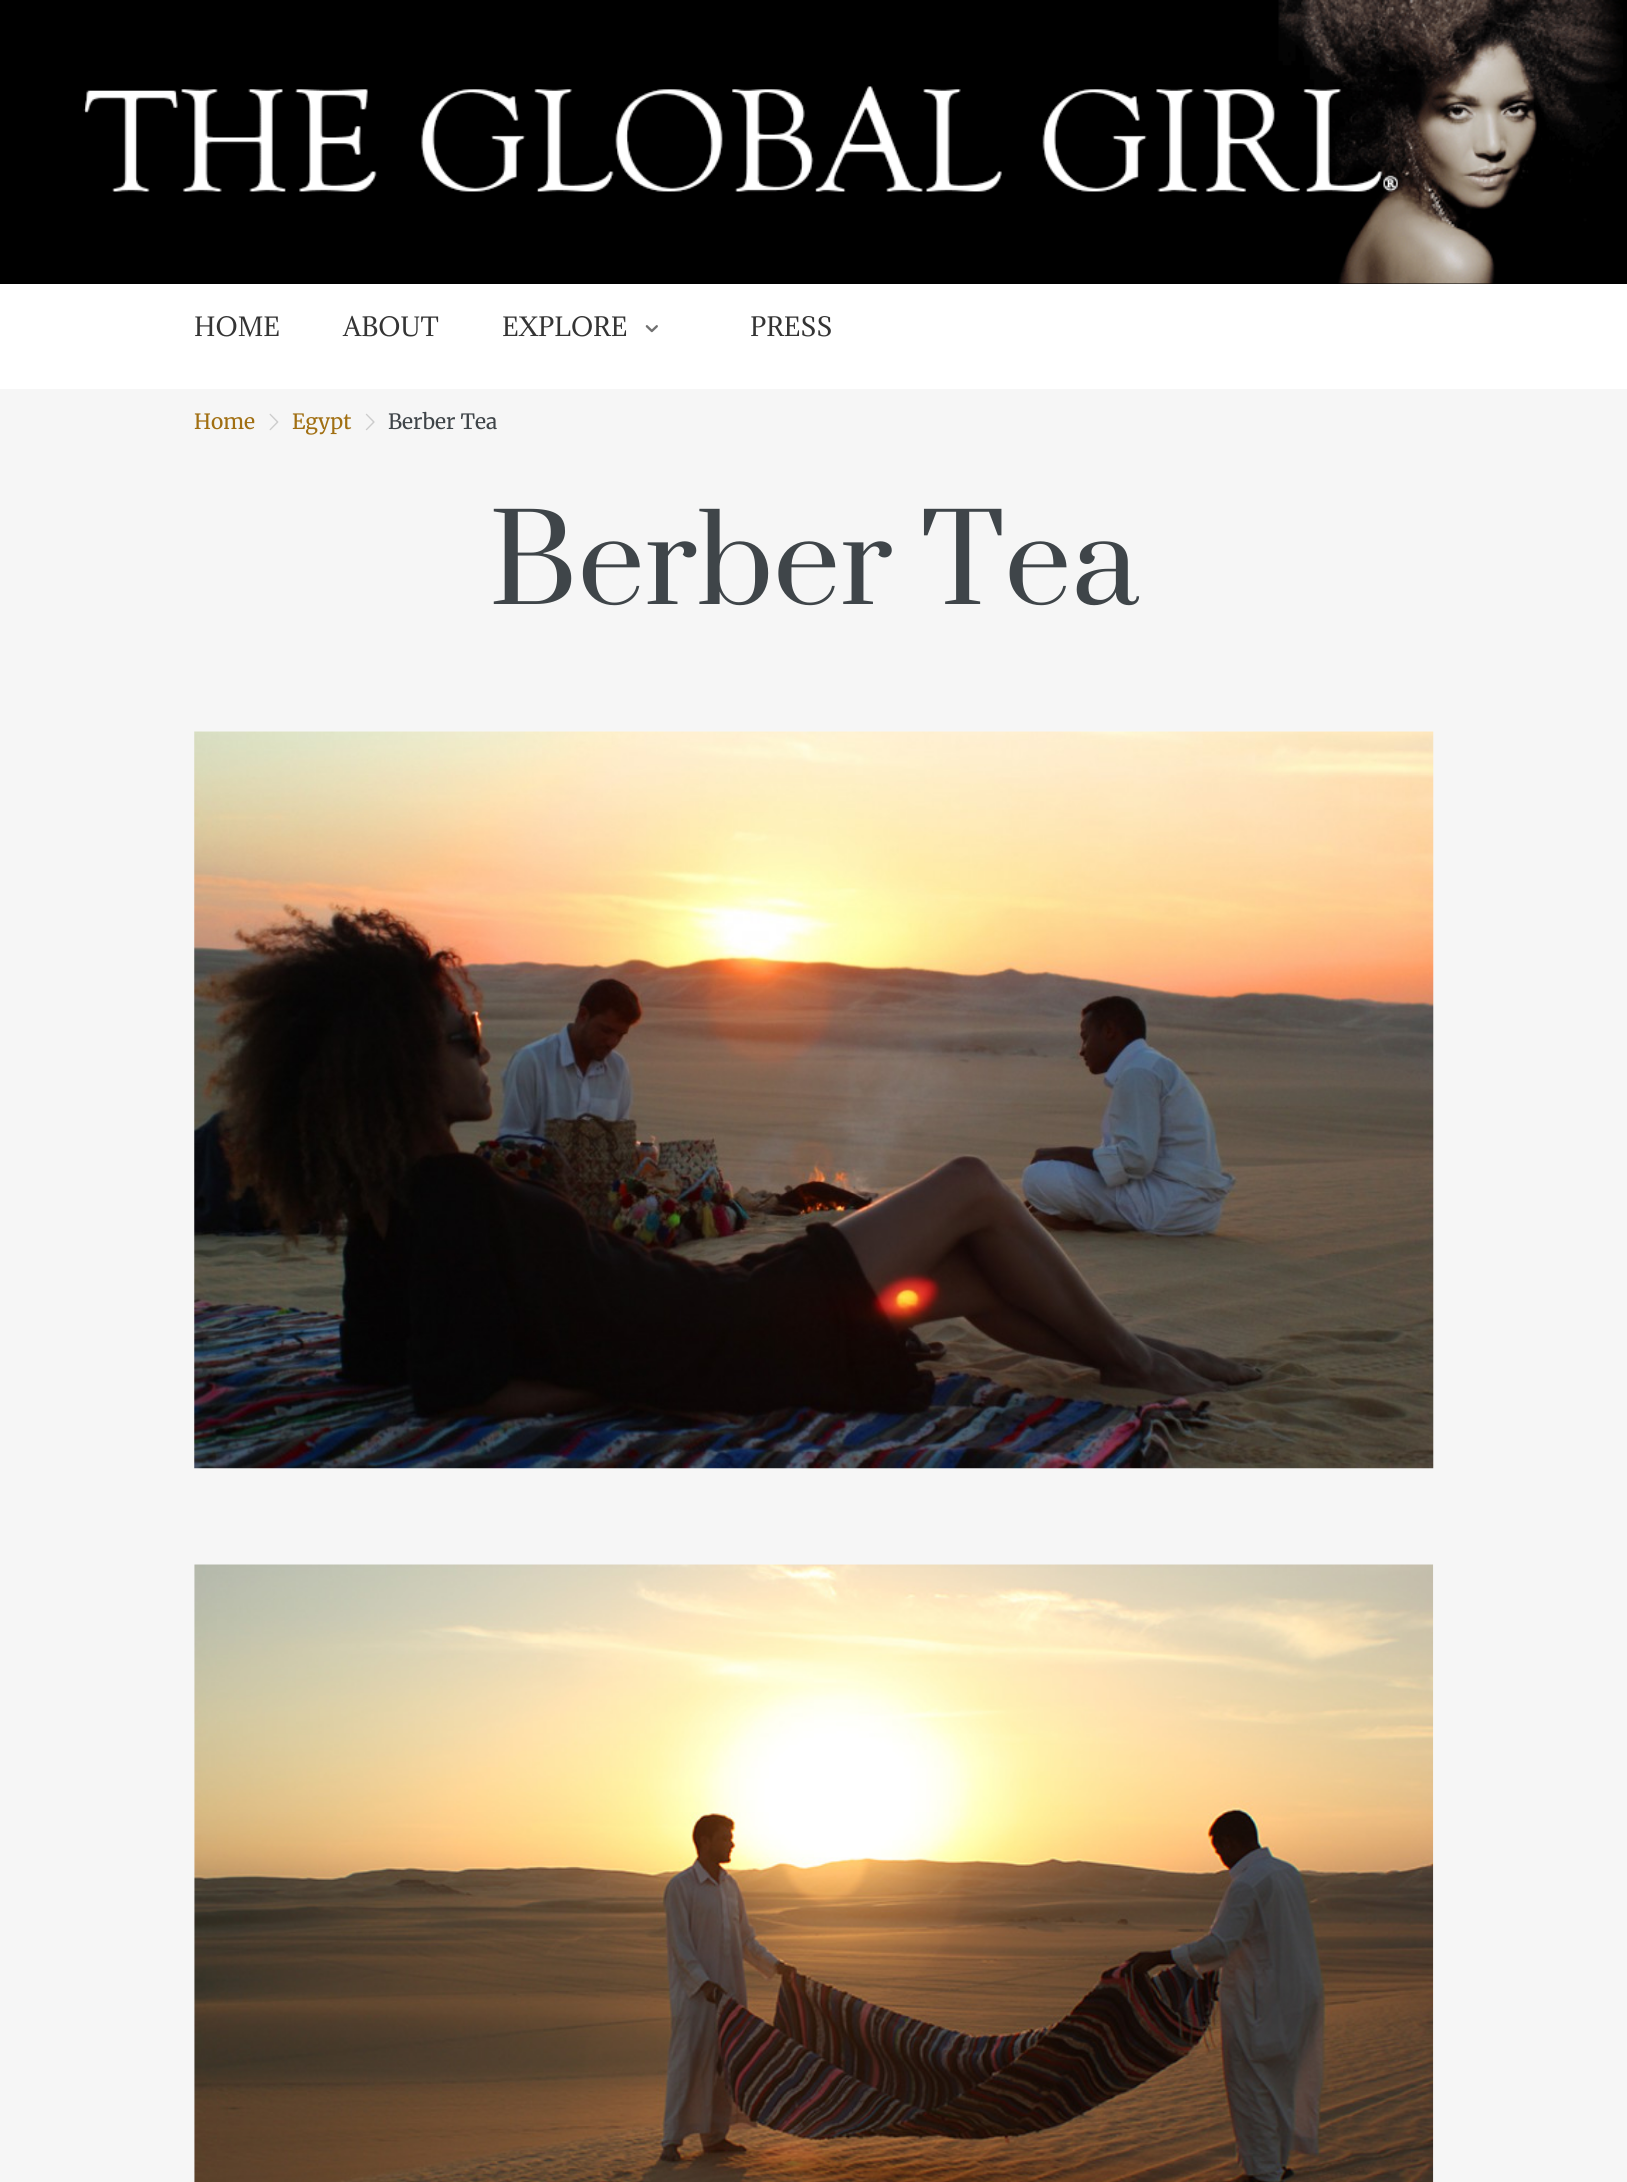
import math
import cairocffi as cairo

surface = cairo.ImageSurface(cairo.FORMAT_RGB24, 1627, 2182)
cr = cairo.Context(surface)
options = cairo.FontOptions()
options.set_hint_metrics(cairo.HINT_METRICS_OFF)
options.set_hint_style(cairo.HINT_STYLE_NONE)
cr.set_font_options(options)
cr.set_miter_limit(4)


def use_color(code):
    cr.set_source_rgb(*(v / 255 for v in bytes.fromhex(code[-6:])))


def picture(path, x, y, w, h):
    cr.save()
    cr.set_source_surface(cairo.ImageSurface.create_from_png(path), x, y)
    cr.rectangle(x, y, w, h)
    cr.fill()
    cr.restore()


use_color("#f6f6f6")
cr.paint()
use_color("#000000")
cr.rectangle(0, 0, 1627, 284)
cr.fill()
picture("img1.png", 83, 0, 1540, 284)
use_color("#ffffff")
cr.rectangle(0, 284, 1627, 105)
cr.fill()
cr.select_font_face("Adamina")
cr.set_font_size(24.5)
use_color("#343434")
cr.move_to(194, 336)
cr.show_text("HOME")
cr.move_to(343, 336)
cr.show_text("ABOUT")
cr.move_to(502, 336)
cr.show_text("EXPLORE")
picture("img2.png", 645, 325, 13, 8)
cr.move_to(750, 336)
cr.show_text("PRESS")
cr.select_font_face("Merriweather")
cr.set_font_size(21)
use_color("#a16f12")
cr.move_to(194, 429)
cr.show_text("Home")
picture("img3.png", 269, 413, 10, 18)
cr.move_to(292, 429)
cr.show_text("Egypt")
picture("img4.png", 365, 413, 10, 18)
use_color("#3f4549")
cr.move_to(388, 429)
cr.show_text("Berber Tea")
cr.select_font_face("Prata")
cr.set_font_size(119)
cr.move_to(489, 604)
cr.show_text("Berber Tea")
picture("img5.png", 194, 731, 1240, 738)
picture("img6.png", 194, 1564, 1240, 618)
surface.write_to_png("result.png")
